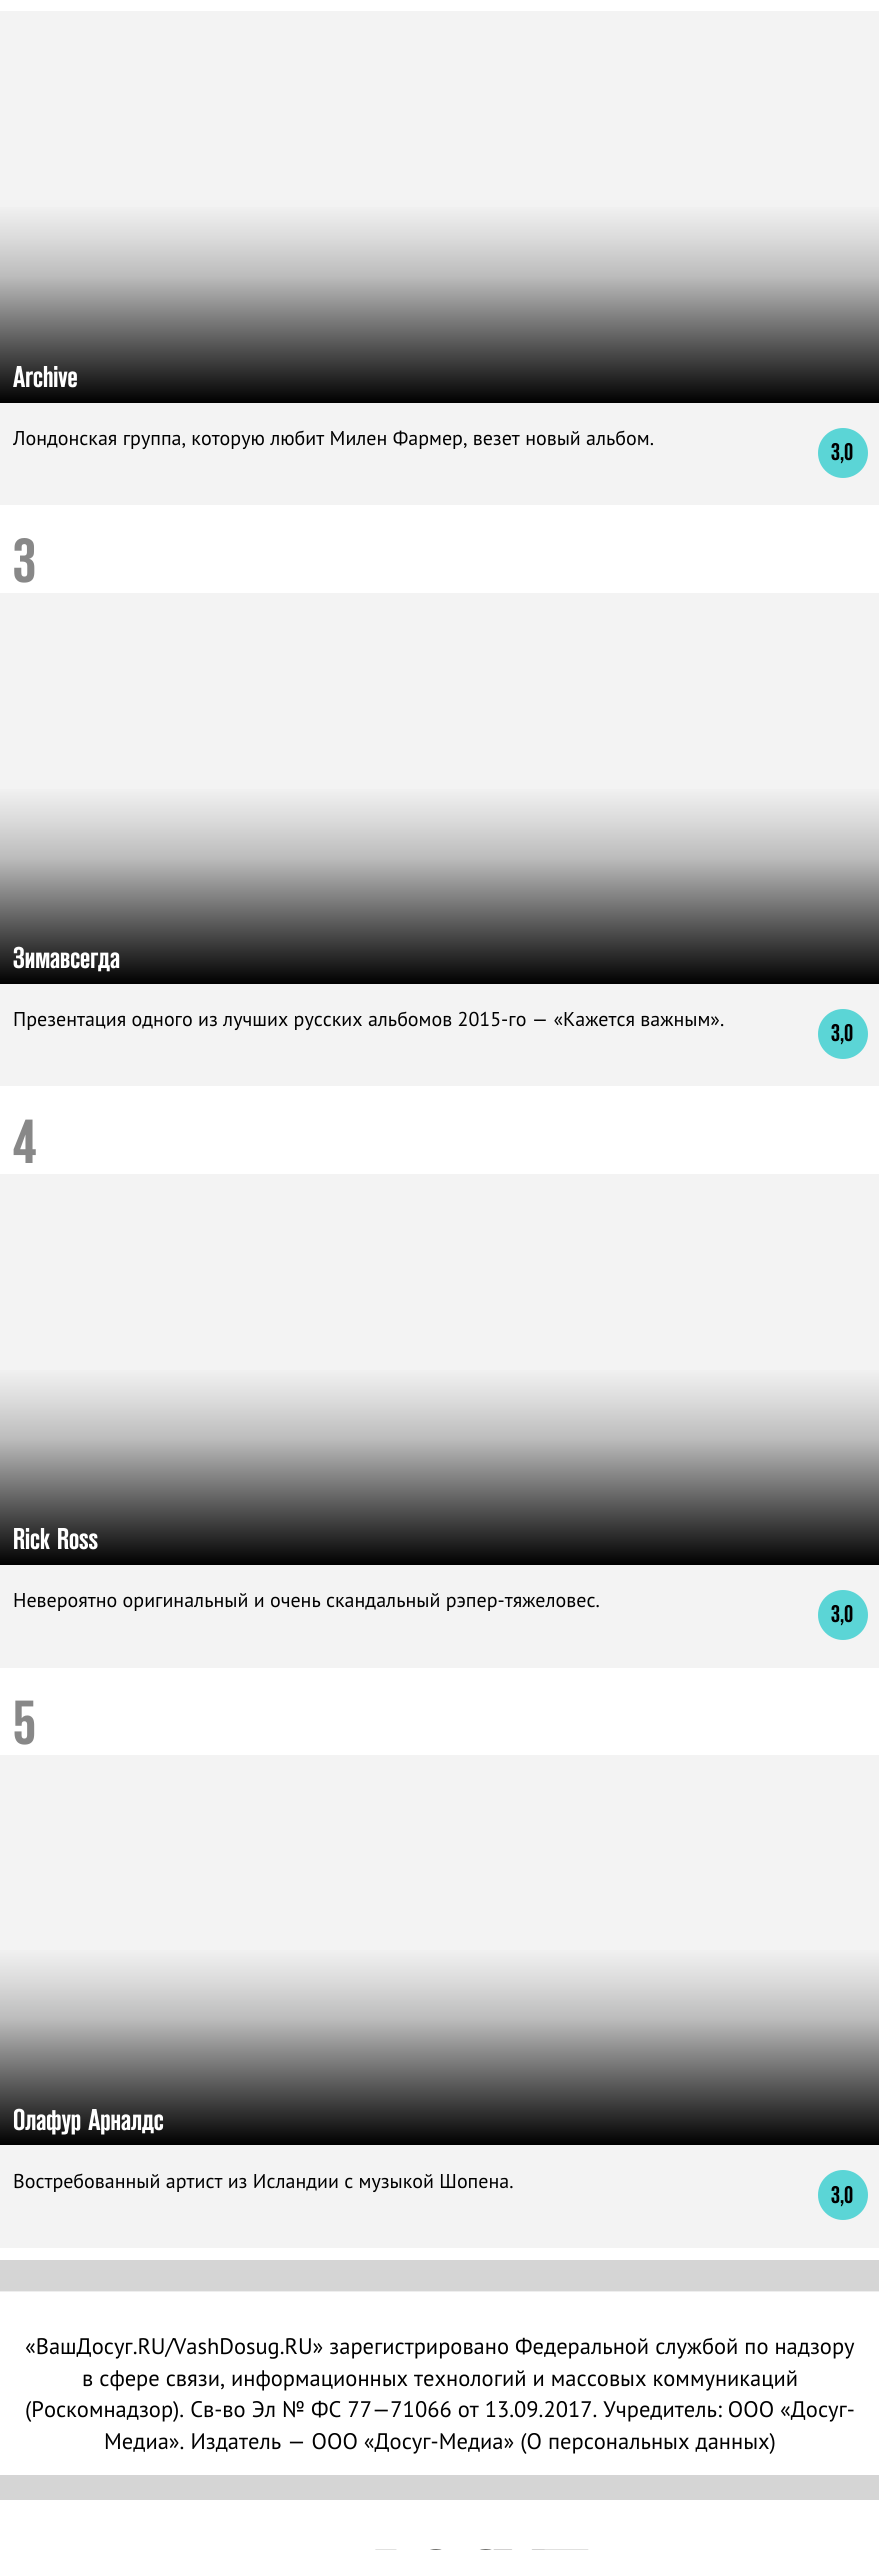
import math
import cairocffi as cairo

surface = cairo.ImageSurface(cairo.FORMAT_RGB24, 879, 2550)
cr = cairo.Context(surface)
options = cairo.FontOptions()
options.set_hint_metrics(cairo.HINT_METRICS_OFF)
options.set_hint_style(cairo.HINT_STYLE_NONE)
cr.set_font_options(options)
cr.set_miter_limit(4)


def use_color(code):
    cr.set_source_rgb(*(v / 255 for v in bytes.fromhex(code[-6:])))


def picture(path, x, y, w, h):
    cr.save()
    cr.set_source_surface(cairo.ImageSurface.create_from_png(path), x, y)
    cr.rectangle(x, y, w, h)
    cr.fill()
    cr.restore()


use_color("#d5d5d5")
cr.paint()
use_color("#ffffff")
cr.rectangle(0, 0, 879, 2260)
cr.fill()
use_color("#f3f3f3")
cr.rectangle(0, 11, 879, 494)
cr.fill()
gradient = cairo.LinearGradient(440, 202, 440, 403)
gradient.add_color_stop_rgba(0, 0.957, 0.957, 0.957, 1)
gradient.add_color_stop_rgba(0.18, 0.859, 0.859, 0.859, 1)
gradient.add_color_stop_rgba(0.37, 0.737, 0.737, 0.737, 1)
gradient.add_color_stop_rgba(1, 0, 0, 0, 1)
cr.set_source(gradient)
cr.rectangle(0, 207, 879, 196)
cr.fill()
cr.select_font_face("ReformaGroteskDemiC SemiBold")
cr.set_font_size(30)
use_color("#ffffff")
cr.move_to(13, 387)
cr.show_text("Archive")
cr.select_font_face("PT Sans")
cr.set_font_size(20)
use_color("#000000")
cr.move_to(13, 445)
cr.show_text("Лондонская группа, которую любит Милен Фармер, везет новый альбом.")
use_color("#5bd5d6")
cr.new_path()
cr.arc(843, 453, 25, 0, 2 * math.pi)
cr.fill()
cr.select_font_face("ReformaGroteskDemiC SemiBold")
cr.set_font_size(24)
use_color("#000000")
cr.move_to(831, 460)
cr.show_text("3,0")
cr.set_font_size(62)
use_color("#888888")
cr.move_to(13, 582)
cr.show_text("3")
use_color("#f3f3f3")
cr.rectangle(0, 593, 879, 493)
cr.fill()
gradient = cairo.LinearGradient(440, 784, 440, 984)
gradient.add_color_stop_rgba(0, 0.957, 0.957, 0.957, 1)
gradient.add_color_stop_rgba(0.18, 0.859, 0.859, 0.859, 1)
gradient.add_color_stop_rgba(0.37, 0.737, 0.737, 0.737, 1)
gradient.add_color_stop_rgba(1, 0, 0, 0, 1)
cr.set_source(gradient)
cr.rectangle(0, 789, 879, 195)
cr.fill()
cr.set_font_size(30)
use_color("#ffffff")
cr.move_to(13, 968)
cr.show_text("Зимавсегда")
cr.select_font_face("PT Sans")
cr.set_font_size(20)
use_color("#000000")
cr.move_to(13, 1026)
cr.show_text("Презентация одного из лучших русских альбомов 2015-го — «Кажется важным».")
use_color("#5bd5d6")
cr.new_path()
cr.arc(843, 1034, 25, 0, 2 * math.pi)
cr.fill()
cr.select_font_face("ReformaGroteskDemiC SemiBold")
cr.set_font_size(24)
use_color("#000000")
cr.move_to(831, 1041)
cr.show_text("3,0")
cr.set_font_size(62)
use_color("#888888")
cr.move_to(13, 1163)
cr.show_text("4")
use_color("#f3f3f3")
cr.rectangle(0, 1174, 879, 494)
cr.fill()
gradient = cairo.LinearGradient(440, 1365, 440, 1565)
gradient.add_color_stop_rgba(0, 0.957, 0.957, 0.957, 1)
gradient.add_color_stop_rgba(0.18, 0.859, 0.859, 0.859, 1)
gradient.add_color_stop_rgba(0.37, 0.737, 0.737, 0.737, 1)
gradient.add_color_stop_rgba(1, 0, 0, 0, 1)
cr.set_source(gradient)
cr.rectangle(0, 1370, 879, 195)
cr.fill()
cr.set_font_size(30)
use_color("#ffffff")
cr.move_to(13, 1549)
cr.show_text("Rick Ross")
cr.select_font_face("PT Sans")
cr.set_font_size(20)
use_color("#000000")
cr.move_to(13, 1607)
cr.show_text("Невероятно оригинальный и очень скандальный рэпер-тяжеловес.")
use_color("#5bd5d6")
cr.new_path()
cr.arc(843, 1615, 25, 0, 2 * math.pi)
cr.fill()
cr.select_font_face("ReformaGroteskDemiC SemiBold")
cr.set_font_size(24)
use_color("#000000")
cr.move_to(831, 1622)
cr.show_text("3,0")
cr.set_font_size(62)
use_color("#888888")
cr.move_to(13, 1744)
cr.show_text("5")
use_color("#f3f3f3")
cr.rectangle(0, 1755, 879, 493)
cr.fill()
gradient = cairo.LinearGradient(440, 1945, 440, 2145)
gradient.add_color_stop_rgba(0, 0.957, 0.957, 0.957, 1)
gradient.add_color_stop_rgba(0.18, 0.859, 0.859, 0.859, 1)
gradient.add_color_stop_rgba(0.37, 0.737, 0.737, 0.737, 1)
gradient.add_color_stop_rgba(1, 0, 0, 0, 1)
cr.set_source(gradient)
cr.rectangle(0, 1950, 879, 195)
cr.fill()
cr.set_font_size(30)
use_color("#ffffff")
cr.move_to(13, 2130)
cr.show_text("Олафур Арналдс")
cr.select_font_face("PT Sans")
cr.set_font_size(20)
use_color("#000000")
cr.move_to(13, 2188)
cr.show_text("Востребованный артист из Исландии с музыкой Шопена.")
use_color("#5bd5d6")
cr.new_path()
cr.arc(843, 2195, 25, 0, 2 * math.pi)
cr.fill()
cr.select_font_face("ReformaGroteskDemiC SemiBold")
cr.set_font_size(24)
use_color("#000000")
cr.move_to(831, 2203)
cr.show_text("3,0")
use_color("#ffffff")
cr.rectangle(0, 2292, 879, 183)
cr.fill()
use_color("#eeeeee")
cr.rectangle(0, 2291, 879, 1)
cr.fill()
cr.select_font_face("PT Sans")
cr.set_font_size(22.5)
use_color("#000000")
cr.move_to(25, 2354)
cr.show_text("«ВашДосуг.RU/VashDosug.RU» зарегистрировано Федеральной службой по надзору")
cr.move_to(82, 2386)
cr.show_text("в сфере связи, информационных технологий и массовых коммуникаций")
cr.move_to(25, 2417)
cr.show_text("(Роскомнадзор). Св-во Эл № ФС 77—71066 от 13.09.2017. Учредитель: ООО «Досуг-")
cr.move_to(104, 2449)
cr.show_text("Медиа». Издатель — ООО «Досуг-Медиа» (О персональных данных)")
use_color("#ffffff")
cr.rectangle(0, 2500, 879, 50)
cr.fill()
picture("img1.png", 375, 2549, 214, 1)
surface.write_to_png("result.png")
